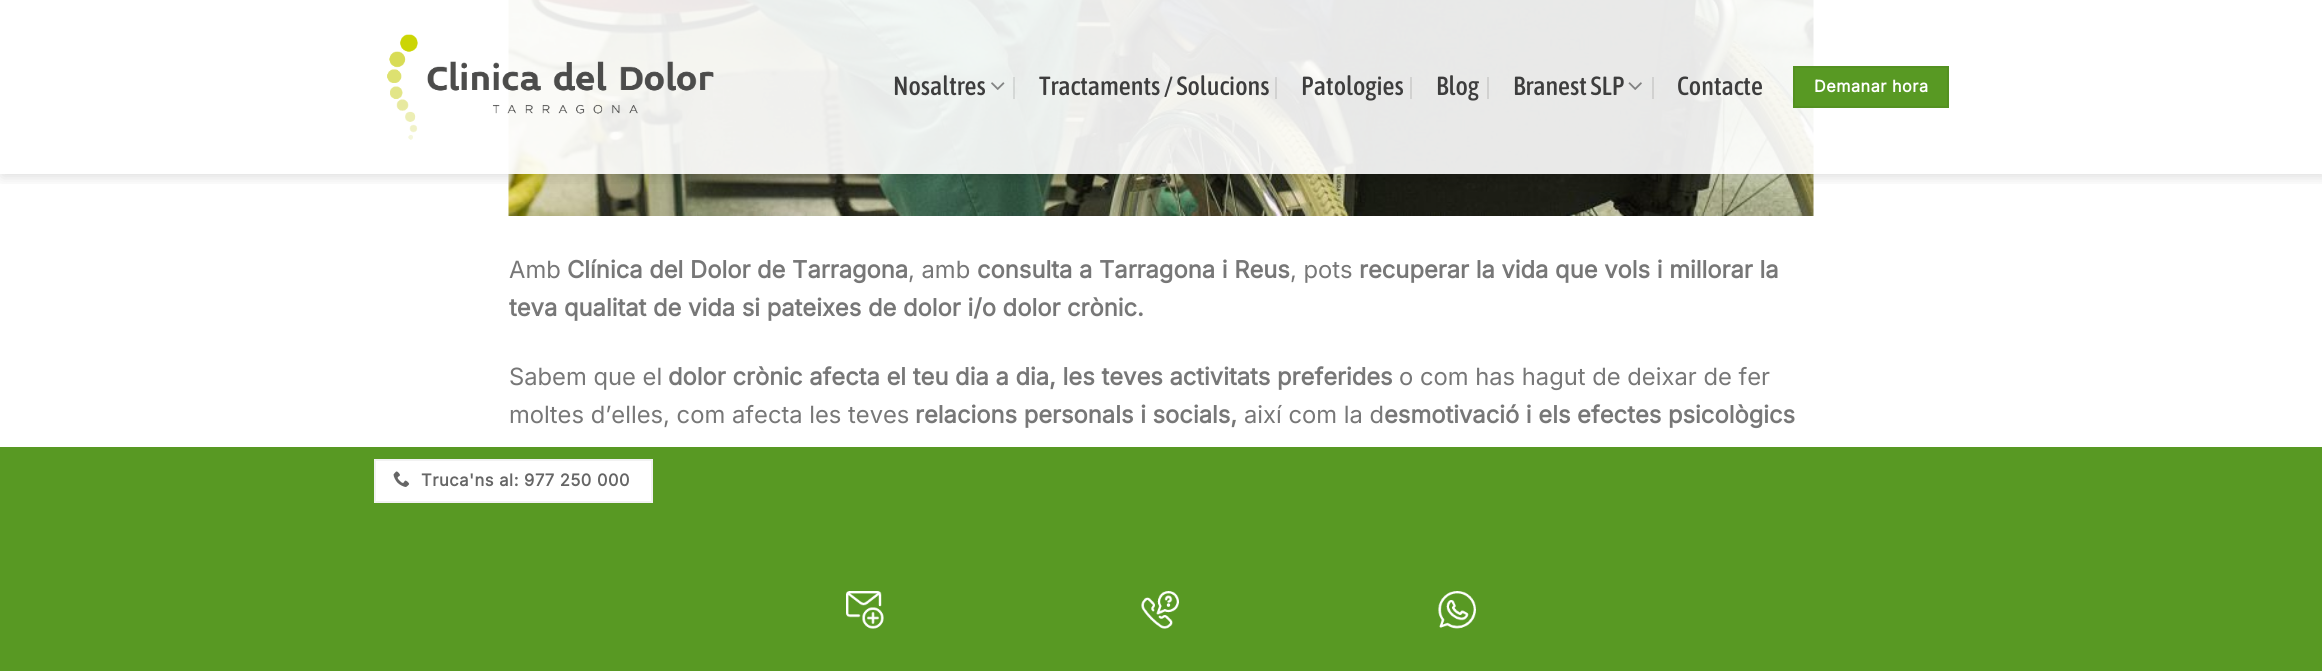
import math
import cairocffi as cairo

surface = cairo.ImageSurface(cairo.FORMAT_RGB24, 2322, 671)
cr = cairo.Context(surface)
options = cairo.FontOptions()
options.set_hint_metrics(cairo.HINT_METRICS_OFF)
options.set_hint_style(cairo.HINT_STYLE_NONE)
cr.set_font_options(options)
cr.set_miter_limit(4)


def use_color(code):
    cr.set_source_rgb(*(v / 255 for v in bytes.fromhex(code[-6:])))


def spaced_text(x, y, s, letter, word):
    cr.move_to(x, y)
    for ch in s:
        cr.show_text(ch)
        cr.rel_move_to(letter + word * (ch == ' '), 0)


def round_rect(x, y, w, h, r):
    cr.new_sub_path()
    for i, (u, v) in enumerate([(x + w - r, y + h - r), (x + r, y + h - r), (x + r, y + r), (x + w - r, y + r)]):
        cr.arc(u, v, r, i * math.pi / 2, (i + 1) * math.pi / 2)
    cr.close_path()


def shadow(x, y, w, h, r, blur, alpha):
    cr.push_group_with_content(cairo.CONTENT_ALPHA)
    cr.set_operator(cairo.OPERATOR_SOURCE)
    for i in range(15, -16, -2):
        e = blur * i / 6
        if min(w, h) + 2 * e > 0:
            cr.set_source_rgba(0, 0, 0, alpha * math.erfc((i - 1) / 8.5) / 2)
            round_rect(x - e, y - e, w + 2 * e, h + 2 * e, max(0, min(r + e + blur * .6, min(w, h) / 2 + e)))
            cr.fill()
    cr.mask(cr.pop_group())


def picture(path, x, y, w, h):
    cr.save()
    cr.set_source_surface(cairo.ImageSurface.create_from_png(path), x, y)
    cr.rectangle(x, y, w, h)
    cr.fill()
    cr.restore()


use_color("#ffffff")
cr.paint()
picture("img4.png", 508, 0, 1306, 216)
cr.save()
cr.rectangle(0, 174, 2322, 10)
cr.clip()
use_color("#000000")
shadow(2, 2, 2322, 174, 0, 7.5, 0.15)
cr.restore()
cr.set_source_rgba(1, 1, 1, 0.9)
cr.rectangle(508, 0, 1306, 174)
cr.fill()
picture("img1.png", 387, 34, 327, 106)
cr.select_font_face("Asap Condensed Medium")
cr.set_font_size(26.25)
use_color("#3d3d3d")
cr.move_to(893, 95)
cr.show_text("Nosaltres")
picture("img2.png", 991, 82, 14, 8)
cr.set_source_rgba(0, 0, 0, 0.1)
cr.rectangle(1013, 77, 2, 22)
cr.fill()
use_color("#3d3d3d")
cr.move_to(1039, 95)
cr.show_text("Tractaments / Solucions")
cr.set_source_rgba(0, 0, 0, 0.1)
cr.rectangle(1275, 77, 2, 22)
cr.fill()
use_color("#3d3d3d")
cr.move_to(1301, 95)
cr.show_text("Patologies")
use_color("#d1d1d0")
cr.rectangle(1410, 77, 2, 22)
cr.fill()
use_color("#3d3d3d")
cr.move_to(1436, 95)
cr.show_text("Blog")
use_color("#d1d1d0")
cr.rectangle(1487, 77, 2, 22)
cr.fill()
use_color("#3d3d3d")
cr.move_to(1513, 95)
cr.show_text("Branest SLP")
picture("img3.png", 1628, 82, 14, 8)
use_color("#d1d1d0")
cr.rectangle(1652, 77, 2, 22)
cr.fill()
use_color("#3d3d3d")
cr.move_to(1677, 95)
cr.show_text("Contacte")
use_color("#589923")
cr.rectangle(1794, 67, 154, 40)
cr.fill_preserve()
use_color("#549121")
cr.stroke()
cr.select_font_face("Inter", cairo.FONT_SLANT_NORMAL, cairo.FONT_WEIGHT_BOLD)
cr.set_font_size(16.25)
use_color("#ffffff")
spaced_text(1814, 92, "Demanar hora", 0.5, 0)
cr.select_font_face("Inter")
cr.set_font_size(23.75)
use_color("#777777")
cr.move_to(509, 278)
cr.show_text("Amb")
cr.select_font_face("Inter", cairo.FONT_SLANT_NORMAL, cairo.FONT_WEIGHT_BOLD)
cr.move_to(567, 278)
cr.show_text("Clínica del Dolor de Tarragona")
cr.select_font_face("Inter")
cr.move_to(908, 278)
cr.show_text(", amb")
cr.select_font_face("Inter", cairo.FONT_SLANT_NORMAL, cairo.FONT_WEIGHT_BOLD)
cr.move_to(977, 278)
cr.show_text("consulta a Tarragona i Reus")
cr.select_font_face("Inter")
cr.move_to(1290, 278)
cr.show_text(", pots")
cr.select_font_face("Inter", cairo.FONT_SLANT_NORMAL, cairo.FONT_WEIGHT_BOLD)
cr.move_to(1359, 278)
cr.show_text("recuperar la vida que vols i millorar la")
cr.move_to(509, 316)
cr.show_text("teva qualitat de vida si pateixes de dolor i/o dolor crònic.")
cr.select_font_face("Inter")
cr.move_to(509, 385)
cr.show_text("Sabem que el")
cr.select_font_face("Inter", cairo.FONT_SLANT_NORMAL, cairo.FONT_WEIGHT_BOLD)
cr.move_to(668, 385)
cr.show_text("dolor crònic afecta el teu dia a dia, les teves activitats preferides")
cr.select_font_face("Inter")
cr.move_to(1399, 385)
cr.show_text("o com has hagut de deixar de fer")
cr.move_to(509, 423)
cr.show_text("moltes d’elles, com afecta les teves")
cr.select_font_face("Inter", cairo.FONT_SLANT_NORMAL, cairo.FONT_WEIGHT_BOLD)
cr.move_to(915, 423)
cr.show_text("relacions personals i socials,")
cr.select_font_face("Inter")
cr.move_to(1244, 423)
cr.show_text("així com la d")
cr.select_font_face("Inter", cairo.FONT_SLANT_NORMAL, cairo.FONT_WEIGHT_BOLD)
cr.move_to(1384, 423)
cr.show_text("esmotivació i els efectes psicològics")
use_color("#589923")
cr.rectangle(0, 447, 2322, 224)
cr.fill()
use_color("#ffffff")
cr.rectangle(375, 460, 277, 42)
cr.fill_preserve()
use_color("#f2f2f2")
cr.stroke()
picture("img5.png", 393, 471, 17, 16)
cr.set_font_size(16.6)
use_color("#666666")
spaced_text(421, 486, "Truca'ns al: 977 250 000", 0.5, 0)
picture("img6.png", 846, 591, 38, 38)
picture("img7.png", 1141, 591, 38, 38)
picture("img8.png", 1438, 591, 38, 38)
surface.write_to_png("result.png")
